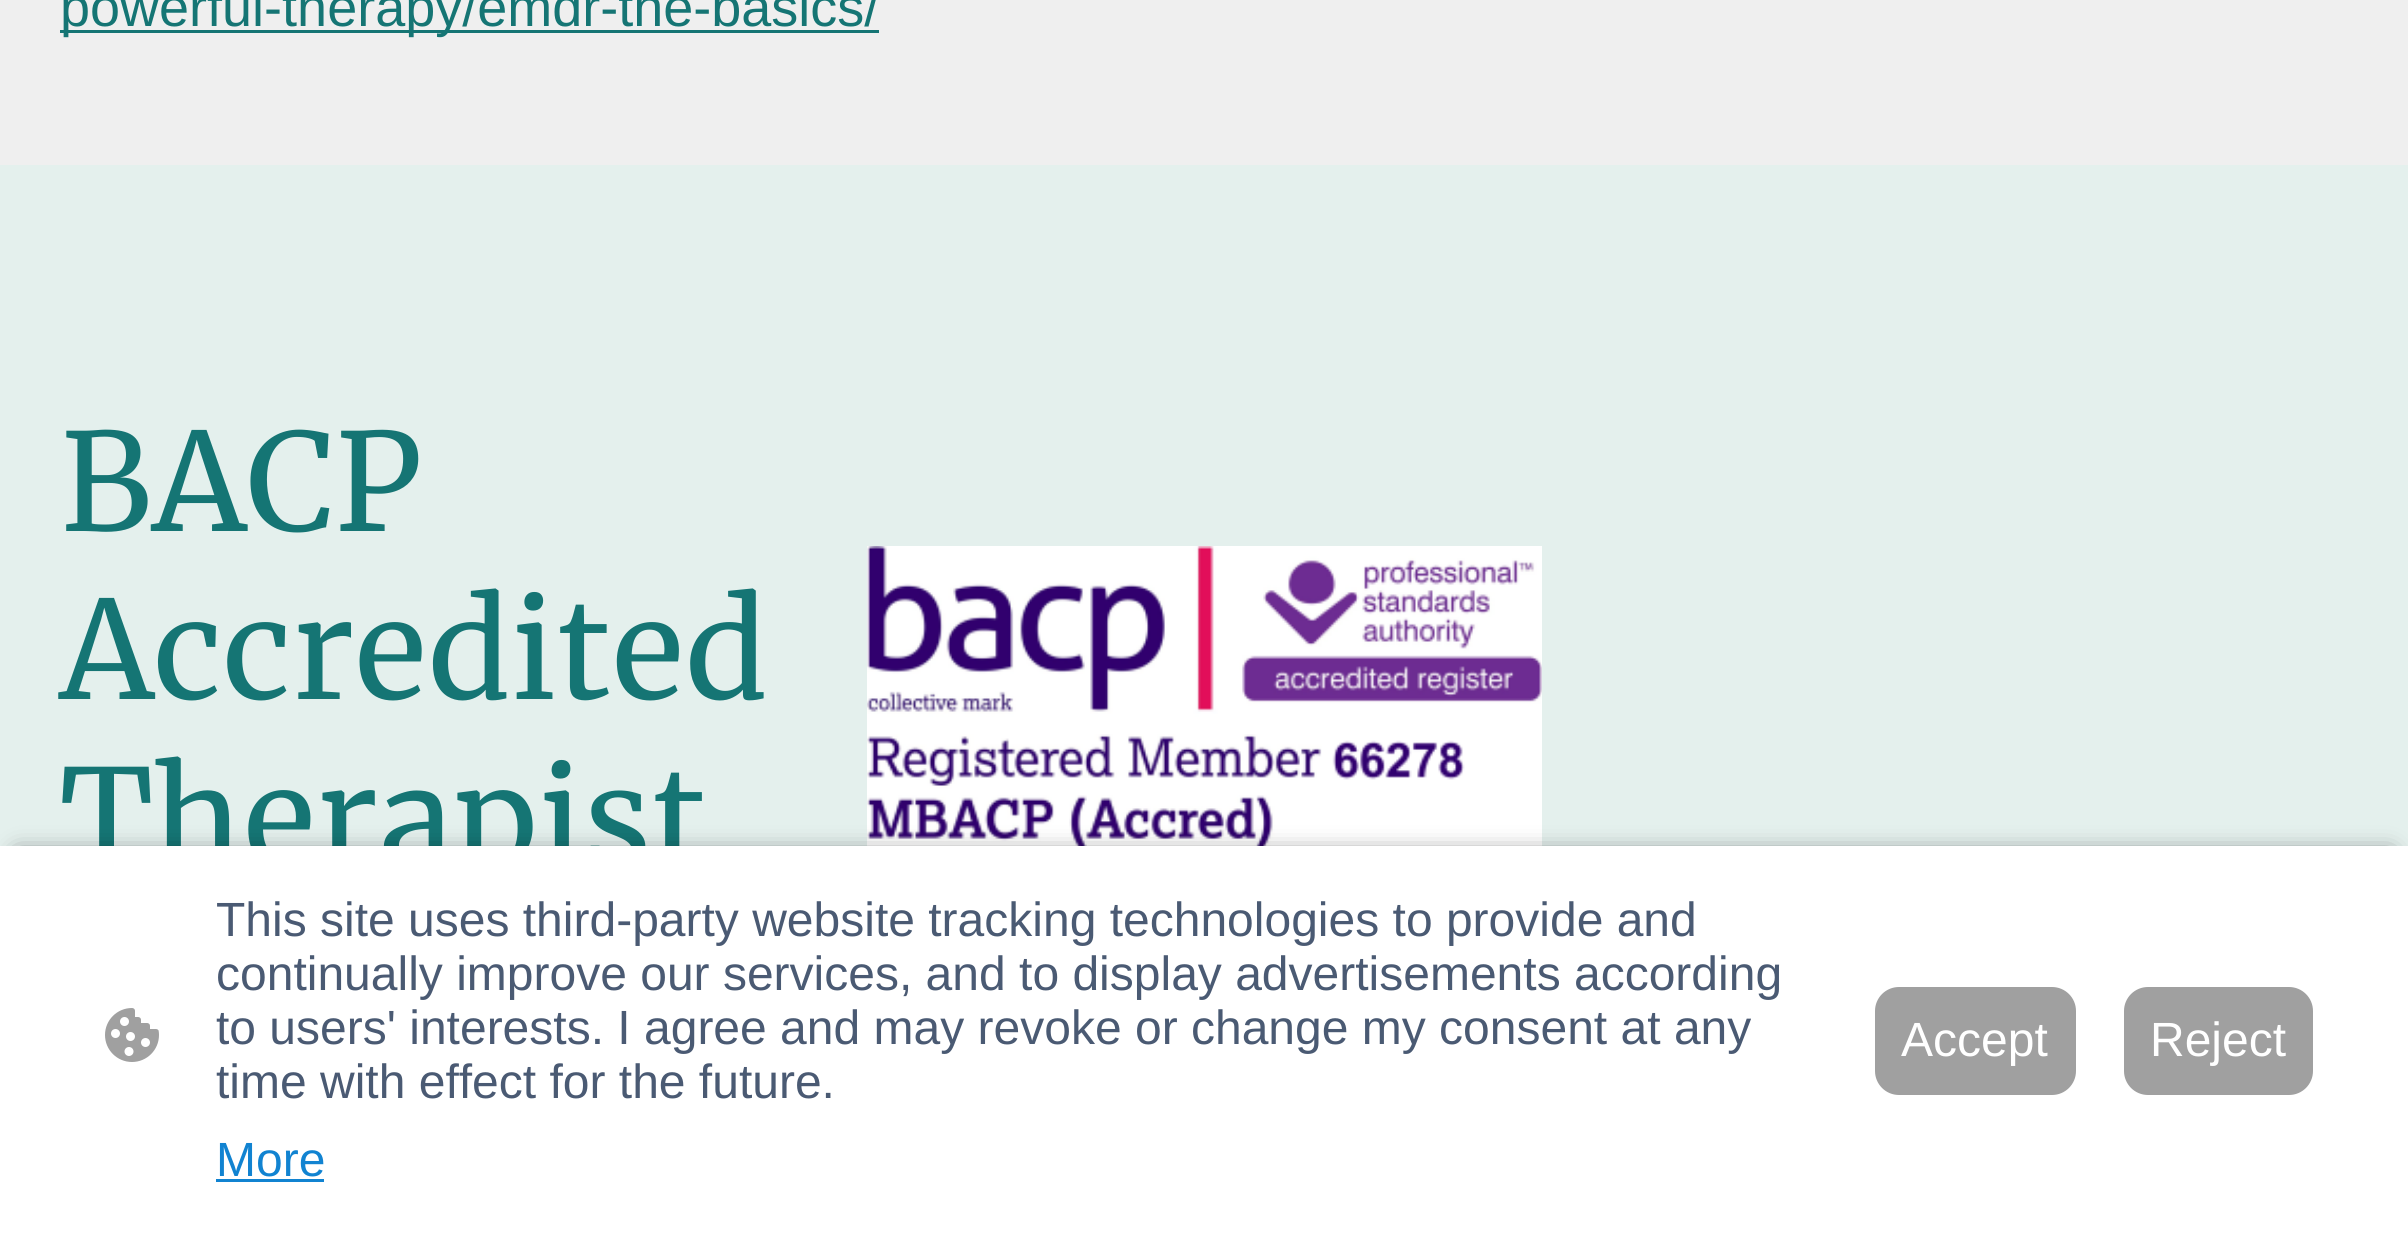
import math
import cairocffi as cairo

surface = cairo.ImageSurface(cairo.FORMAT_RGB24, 2408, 1235)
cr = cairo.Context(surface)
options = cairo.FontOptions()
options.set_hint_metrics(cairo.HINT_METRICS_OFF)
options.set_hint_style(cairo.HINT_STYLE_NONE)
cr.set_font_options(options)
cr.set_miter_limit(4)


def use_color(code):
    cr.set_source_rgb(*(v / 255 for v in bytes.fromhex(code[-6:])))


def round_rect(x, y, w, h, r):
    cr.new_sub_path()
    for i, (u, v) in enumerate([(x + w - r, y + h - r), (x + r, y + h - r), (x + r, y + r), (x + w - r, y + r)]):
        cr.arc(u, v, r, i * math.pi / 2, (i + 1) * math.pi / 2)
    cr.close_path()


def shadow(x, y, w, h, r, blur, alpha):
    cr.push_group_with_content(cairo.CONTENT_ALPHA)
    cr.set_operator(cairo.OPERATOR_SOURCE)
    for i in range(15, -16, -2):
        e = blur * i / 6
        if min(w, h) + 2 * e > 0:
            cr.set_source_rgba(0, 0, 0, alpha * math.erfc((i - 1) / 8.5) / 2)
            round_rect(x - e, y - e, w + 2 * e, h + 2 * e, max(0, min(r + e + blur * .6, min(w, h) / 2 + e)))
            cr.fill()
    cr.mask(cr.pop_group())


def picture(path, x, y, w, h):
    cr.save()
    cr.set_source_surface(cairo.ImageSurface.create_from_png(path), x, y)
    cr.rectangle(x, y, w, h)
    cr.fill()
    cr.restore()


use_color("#efefef")
cr.paint()
use_color("#157574")
cr.rectangle(60, 30, 819, 3)
cr.fill()
cr.select_font_face("Liberation Sans")
cr.set_font_size(54)
cr.move_to(60, 26)
cr.show_text("powerful-therapy/emdr-the-basics/")
use_color("#e4f0ed")
cr.rectangle(0, 165, 2408, 681)
cr.fill()
cr.select_font_face("Merriweather")
cr.set_font_size(135)
use_color("#157574")
cr.move_to(60, 531)
cr.show_text("BACP")
cr.move_to(60, 699)
cr.show_text("Accredited")
cr.move_to(60, 867)
cr.show_text("Therapist")
picture("img1.png", 867, 546, 675, 300)
use_color("#000000")
shadow(18, 855, 2373, 354, 0, 12, 0.63)
use_color("#ffffff")
cr.rectangle(0, 846, 2408, 389)
cr.fill()
picture("img2.png", 105, 1008, 54, 54)
cr.select_font_face("Liberation Sans")
cr.set_font_size(48)
use_color("#4a5a73")
cr.move_to(216, 936)
cr.show_text("This site uses third-party website tracking technologies to provide and")
cr.move_to(216, 990)
cr.show_text("continually improve our services, and to display advertisements according")
cr.move_to(216, 1044)
cr.show_text("to users' interests. I agree and may revoke or change my consent at any")
cr.move_to(216, 1098)
cr.show_text("time with effect for the future.")
use_color("#1183d1")
cr.move_to(216, 1176)
cr.show_text("More")
cr.rectangle(216, 1179, 108, 3)
cr.fill()
use_color("#a0a0a0")
round_rect(1876.5, 988.5, 198, 105, 22.5)
cr.fill_preserve()
cr.set_line_width(3)
cr.stroke()
use_color("#ffffff")
cr.move_to(1901, 1056)
cr.show_text("Accept")
use_color("#a0a0a0")
round_rect(2125.5, 988.5, 186, 105, 22.5)
cr.fill_preserve()
cr.stroke()
use_color("#ffffff")
cr.move_to(2150, 1056)
cr.show_text("Reject")
surface.write_to_png("result.png")
